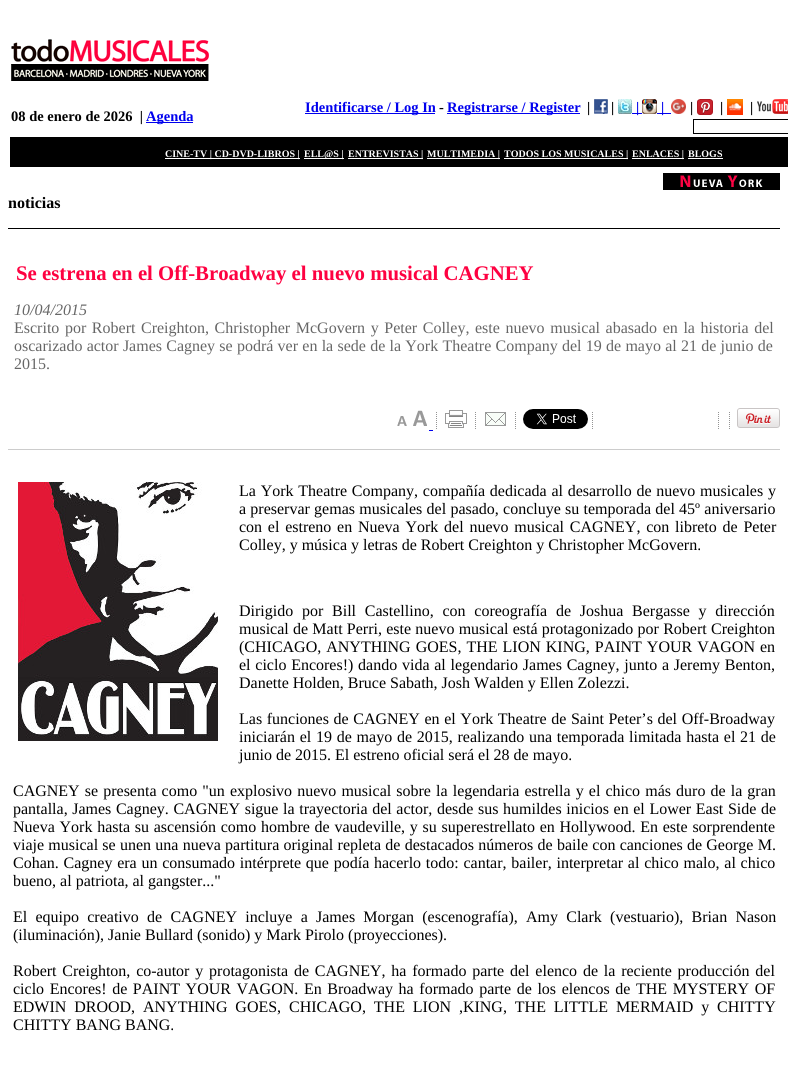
import math
import cairocffi as cairo

surface = cairo.ImageSurface(cairo.FORMAT_RGB24, 788, 1081)
cr = cairo.Context(surface)
options = cairo.FontOptions()
options.set_hint_metrics(cairo.HINT_METRICS_OFF)
options.set_hint_style(cairo.HINT_STYLE_NONE)
cr.set_font_options(options)
cr.set_miter_limit(4)


def use_color(code):
    cr.set_source_rgb(*(v / 255 for v in bytes.fromhex(code[-6:])))


def spaced_text(x, y, s, letter, word):
    cr.move_to(x, y)
    for ch in s:
        cr.show_text(ch)
        cr.rel_move_to(letter + word * (ch == ' '), 0)


def picture(path, x, y, w, h):
    cr.save()
    cr.set_source_surface(cairo.ImageSurface.create_from_png(path), x, y)
    cr.rectangle(x, y, w, h)
    cr.fill()
    cr.restore()


use_color("#ffffff")
cr.paint()
picture("img1.png", 11, 39, 198, 42)
use_color("#0000ee")
cr.rectangle(305, 113, 130, 1)
cr.fill()
cr.select_font_face("Liberation Serif", cairo.FONT_SLANT_NORMAL, cairo.FONT_WEIGHT_BOLD)
cr.set_font_size(14.5)
cr.move_to(305, 112)
cr.show_text("Identificarse / Log In")
use_color("#000000")
cr.move_to(439, 112)
cr.show_text("-")
use_color("#0000ee")
cr.rectangle(447, 113, 133, 1)
cr.fill()
cr.move_to(447, 112)
cr.show_text("Registrarse / Register")
use_color("#000000")
cr.move_to(587, 112)
cr.show_text("|")
picture("img2.png", 594, 99, 14, 15)
cr.move_to(611, 112)
cr.show_text("|")
picture("img3.png", 618, 99, 14, 15)
use_color("#0000ee")
cr.rectangle(632, 113, 10, 1)
cr.fill()
cr.move_to(636, 112)
cr.show_text("|")
picture("img4.png", 642, 99, 15, 15)
cr.rectangle(657, 113, 14, 1)
cr.fill()
cr.move_to(661, 112)
cr.show_text("|")
picture("img5.png", 671, 99, 15, 15)
use_color("#000000")
cr.move_to(690, 112)
cr.show_text("|")
picture("img6.png", 697, 99, 16, 16)
cr.move_to(720, 112)
cr.show_text("|")
picture("img7.png", 727, 99, 16, 16)
cr.move_to(750, 112)
cr.show_text("|")
picture("img8.png", 757, 99, 31, 15)
cr.rectangle(693.5, 119.5, 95, 14)
cr.set_line_width(1)
cr.stroke()
cr.move_to(11, 121)
cr.show_text("08 de enero de 2026  |")
use_color("#0000ee")
cr.rectangle(146, 122, 47, 1)
cr.fill()
cr.move_to(146, 121)
cr.show_text("Agenda")
use_color("#000000")
cr.rectangle(10, 137, 778, 30)
cr.fill()
use_color("#ffffff")
cr.rectangle(165, 158, 135, 1)
cr.fill()
cr.set_font_size(10)
cr.move_to(165, 157)
cr.show_text("CINE-TV | CD-DVD-LIBROS |")
cr.rectangle(304, 158, 40, 1)
cr.fill()
cr.move_to(304, 157)
cr.show_text("ELL@S |")
cr.rectangle(348, 158, 75, 1)
cr.fill()
cr.move_to(348, 157)
cr.show_text("ENTREVISTAS |")
cr.rectangle(427, 158, 73, 1)
cr.fill()
cr.move_to(427, 157)
cr.show_text("MULTIMEDIA |")
cr.rectangle(504, 158, 124, 1)
cr.fill()
cr.move_to(504, 157)
cr.show_text("TODOS LOS MUSICALES |")
cr.rectangle(632, 158, 52, 1)
cr.fill()
cr.move_to(632, 157)
cr.show_text("ENLACES |")
cr.move_to(688, 157)
cr.show_text("BLOGS")
cr.rectangle(688, 158, 35, 1)
cr.fill()
use_color("#000000")
cr.rectangle(8, 228, 772, 1)
cr.fill()
picture("img9.png", 663, 173, 117, 17)
cr.set_font_size(16)
cr.move_to(8, 208)
cr.show_text("noticias")
cr.set_font_size(20.8)
use_color("#fe0141")
cr.move_to(16, 280)
cr.show_text("Se estrena en el Off-Broadway el nuevo musical CAGNEY")
cr.select_font_face("Liberation Serif", cairo.FONT_SLANT_ITALIC)
cr.set_font_size(16)
use_color("#666666")
cr.move_to(14, 315)
cr.show_text("10/04/2015")
cr.select_font_face("Liberation Serif")
spaced_text(14, 333, "Escrito por Robert Creighton, Christopher McGovern y Peter Colley, este nuevo musical abasado en la historia del", 0, 1.6)
spaced_text(14, 351, "oscarizado actor James Cagney se podrá ver en la sede de la York Theatre Company del 19 de mayo al 21 de junio de", 0, 0.25)
cr.move_to(14, 369)
cr.show_text("2015.")
use_color("#cccccc")
cr.rectangle(8, 449, 772, 1)
cr.fill()
picture("img10.png", 397, 416, 10, 10)
picture("img11.png", 413, 410, 14, 16)
picture("img12.png", 436, 412, 1, 17)
picture("img13.png", 445, 410, 22, 18)
picture("img12.png", 475, 412, 1, 17)
picture("img14.png", 485, 412, 21, 14)
picture("img12.png", 515, 412, 1, 17)
picture("img15.png", 523, 409, 65, 20)
picture("img12.png", 592, 412, 1, 17)
picture("img12.png", 718, 412, 1, 17)
picture("img12.png", 729, 412, 1, 17)
picture("img16.png", 737, 408, 43, 20)
use_color("#0000ee")
cr.rectangle(429, 430, 4, 1)
cr.fill()
picture("img17.png", 18, 482, 200, 259)
use_color("#000000")
spaced_text(239, 496, "La York Theatre Company, compañía dedicada al desarrollo de nuevo musicales y", 0, 0.75)
spaced_text(239, 514, "a preservar gemas musicales del pasado, concluye su temporada del 45º aniversario", 0, 0.25)
spaced_text(239, 532, "con el estreno en Nueva York del nuevo musical CAGNEY, con libreto de Peter", 0, 1.75)
cr.move_to(239, 550)
cr.show_text("Colley, y música y letras de Robert Creighton y Christopher McGovern.")
spaced_text(239, 616, "Dirigido por Bill Castellino, con coreografía de Joshua Bergasse y dirección", 0, 4.75)
spaced_text(239, 634, "musical de Matt Perri, este nuevo musical está protagonizado por Robert Creighton", 0, 0.25)
spaced_text(239, 652, "(CHICAGO, ANYTHING GOES, THE LION KING, PAINT YOUR VAGON en", 0, 1)
spaced_text(239, 670, "el ciclo Encores!) dando vida al legendario James Cagney, junto a Jeremy Benton,", 0, 0.75)
cr.move_to(239, 688)
cr.show_text("Danette Holden, Bruce Sabath, Josh Walden y Ellen Zolezzi.")
spaced_text(239, 724, "Las funciones de CAGNEY en el York Theatre de Saint Peter’s del Off-Broadway", 0, 0.6)
spaced_text(239, 742, "iniciarán el 19 de mayo de 2015, realizando una temporada limitada hasta el 21 de", 0, 0.75)
cr.move_to(239, 760)
cr.show_text("junio de 2015. El estreno oficial será el 28 de mayo.")
spaced_text(13, 796, "CAGNEY se presenta como \"un explosivo nuevo musical sobre la legendaria estrella y el chico más duro de la gran", 0, 1.1)
spaced_text(13, 814, "pantalla, James Cagney. CAGNEY sigue la trayectoria del actor, desde sus humildes inicios en el Lower East Side de", 0, 0.6)
spaced_text(13, 832, "Nueva York hasta su ascensión como hombre de vaudeville, y su superestrellato en Hollywood. En este sorprendente", 0, 0.75)
spaced_text(13, 850, "viaje musical se unen una nueva partitura original repleta de destacados números de baile con canciones de George M.", 0, 0.25)
spaced_text(13, 868, "Cohan. Cagney era un consumado intérprete que podía hacerlo todo: cantar, bailer, interpretar al chico malo, al chico", 0, 0.75)
cr.move_to(13, 886)
cr.show_text("bueno, al patriota, al gangster...\"")
spaced_text(13, 922, "El equipo creativo de CAGNEY incluye a James Morgan (escenografía), Amy Clark (vestuario), Brian Nason", 0, 4.25)
cr.move_to(13, 940)
cr.show_text("(iluminación), Janie Bullard (sonido) y Mark Pirolo (proyecciones).")
spaced_text(13, 976, "Robert Creighton, co-autor y protagonista de CAGNEY, ha formado parte del elenco de la reciente producción del", 0, 1.8)
spaced_text(13, 994, "ciclo Encores! de PAINT YOUR VAGON. En Broadway ha formado parte de los elencos de THE MYSTERY OF", 0, 1.6)
spaced_text(13, 1012, "EDWIN DROOD, ANYTHING GOES, CHICAGO, THE LION ,KING, THE LITTLE MERMAID y CHITTY", 0, 3.9)
cr.move_to(13, 1030)
cr.show_text("CHITTY BANG BANG.")
surface.write_to_png("result.png")
